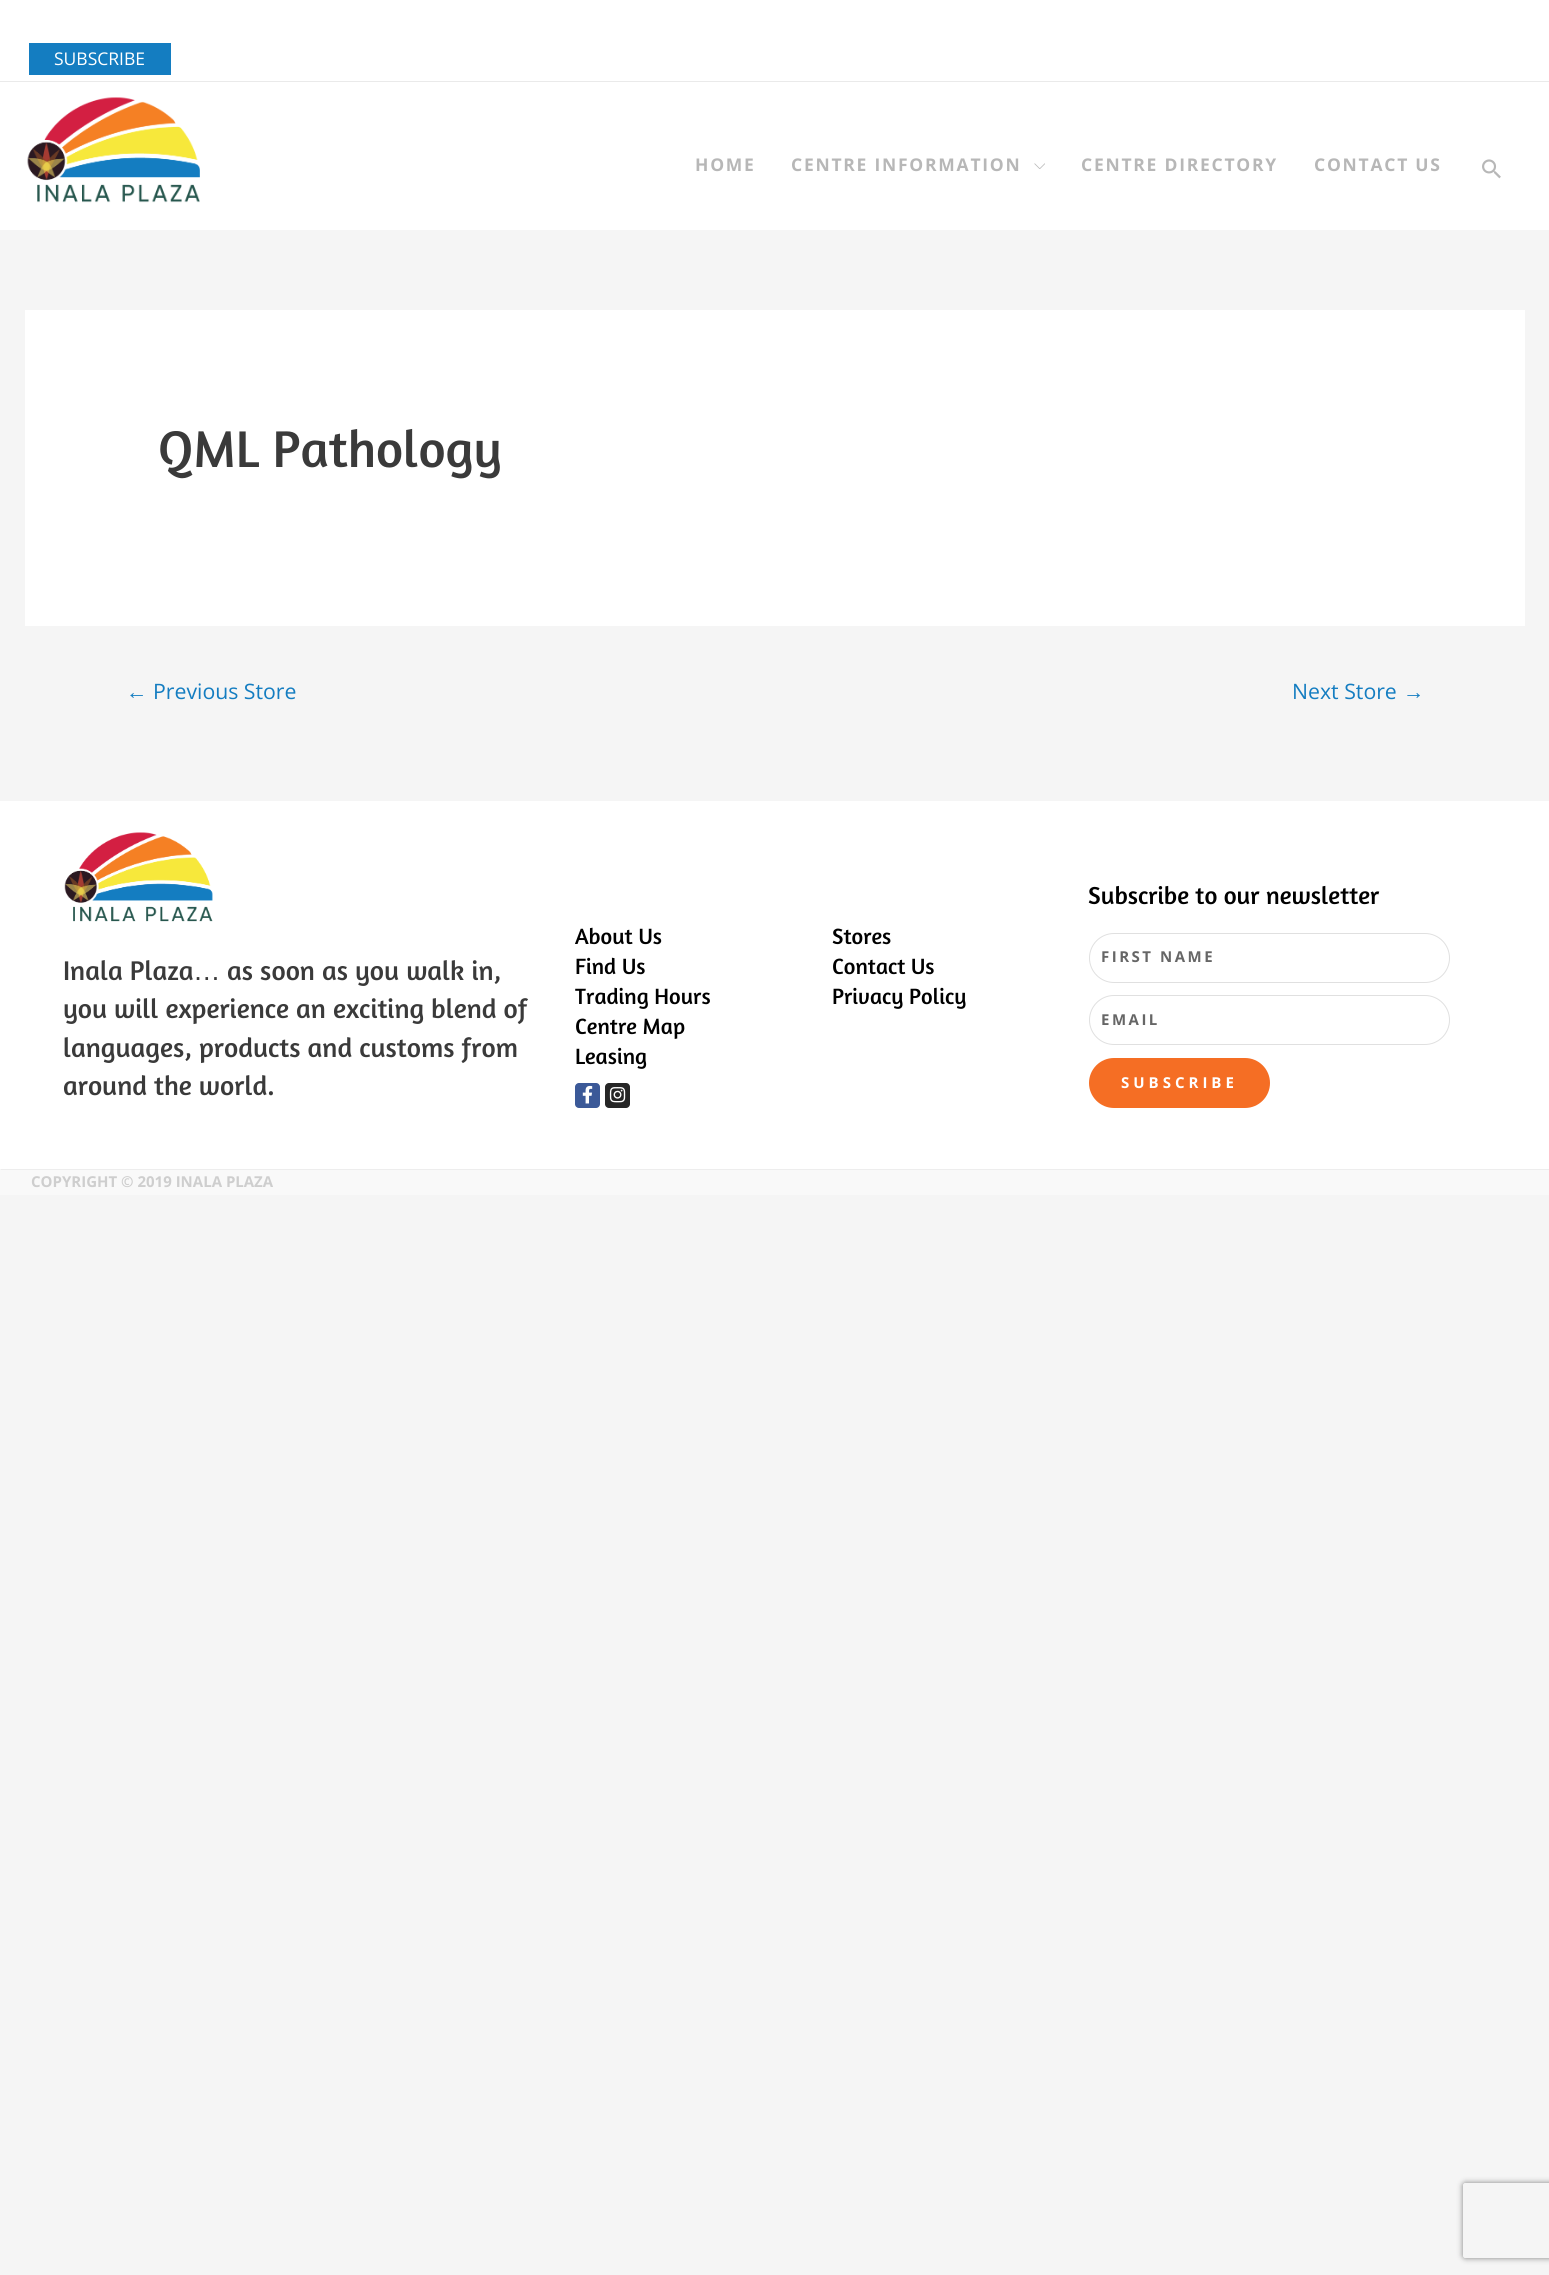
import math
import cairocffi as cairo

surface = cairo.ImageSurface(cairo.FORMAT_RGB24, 1549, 2275)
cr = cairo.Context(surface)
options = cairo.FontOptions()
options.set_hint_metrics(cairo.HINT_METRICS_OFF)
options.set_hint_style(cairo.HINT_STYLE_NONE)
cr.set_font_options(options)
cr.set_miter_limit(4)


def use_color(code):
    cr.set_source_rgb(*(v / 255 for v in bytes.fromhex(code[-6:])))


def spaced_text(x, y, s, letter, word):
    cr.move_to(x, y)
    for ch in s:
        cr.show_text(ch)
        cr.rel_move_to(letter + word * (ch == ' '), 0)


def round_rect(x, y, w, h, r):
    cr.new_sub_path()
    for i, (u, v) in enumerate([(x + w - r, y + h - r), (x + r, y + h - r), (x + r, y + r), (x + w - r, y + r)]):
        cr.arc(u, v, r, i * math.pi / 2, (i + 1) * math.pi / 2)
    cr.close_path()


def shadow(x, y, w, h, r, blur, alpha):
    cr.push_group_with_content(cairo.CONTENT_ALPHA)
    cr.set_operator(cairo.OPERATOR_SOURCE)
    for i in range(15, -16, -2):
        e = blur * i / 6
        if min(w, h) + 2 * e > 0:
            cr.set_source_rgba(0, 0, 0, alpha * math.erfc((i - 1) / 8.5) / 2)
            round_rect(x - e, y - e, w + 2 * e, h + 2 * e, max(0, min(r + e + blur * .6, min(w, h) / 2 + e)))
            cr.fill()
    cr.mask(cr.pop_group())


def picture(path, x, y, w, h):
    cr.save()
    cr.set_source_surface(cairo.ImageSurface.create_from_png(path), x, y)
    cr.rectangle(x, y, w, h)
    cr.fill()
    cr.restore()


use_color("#f5f5f5")
cr.paint()
use_color("#ffffff")
cr.rectangle(0, 0, 1549, 230)
cr.fill()
use_color("#eaeaea")
cr.rectangle(0, 81, 1549, 1)
cr.fill()
use_color("#147dc1")
cr.rectangle(29, 43, 142, 32)
cr.fill()
cr.select_font_face("Open Sans")
cr.set_font_size(17.5)
use_color("#ffffff")
cr.move_to(54, 65)
cr.show_text("SUBSCRIBE")
picture("img1.png", 27, 97, 173, 106)
cr.select_font_face("Open Sans", cairo.FONT_SLANT_NORMAL, cairo.FONT_WEIGHT_BOLD)
use_color("#b7b7b7")
spaced_text(695, 171, "HOME", 1.75, 0)
spaced_text(791, 171, "CENTRE INFORMATION", 1.75, 0)
picture("img2.png", 1034, 163, 11, 6)
spaced_text(1081, 171, "CENTRE DIRECTORY", 1.75, 0)
spaced_text(1314, 171, "CONTACT US", 1.75, 0)
picture("img3.png", 1482, 159, 19, 20)
use_color("#ffffff")
cr.rectangle(25, 310, 1500, 316)
cr.fill()
cr.select_font_face("Amaranth")
cr.set_font_size(52.5)
use_color("#3a3a3a")
cr.move_to(158, 467)
cr.show_text("QML Pathology")
cr.select_font_face("Liberation Sans")
cr.set_font_size(21.25)
use_color("#147dc1")
cr.move_to(126, 699)
cr.show_text("←")
cr.select_font_face("Open Sans")
cr.move_to(153, 699)
cr.show_text("Previous Store")
cr.move_to(1292, 699)
cr.show_text("Next Store")
cr.select_font_face("Liberation Sans")
cr.move_to(1403, 699)
cr.show_text("→")
use_color("#ffffff")
cr.rectangle(0, 801, 1549, 368)
cr.fill()
picture("img4.png", 64, 832, 149, 90)
cr.select_font_face("Amaranth")
cr.set_font_size(27.5)
use_color("#3a3a3a")
cr.move_to(63, 980)
cr.show_text("Inala Plaza")
cr.select_font_face("Liberation Sans")
cr.move_to(193, 980)
cr.show_text("…")
cr.select_font_face("Amaranth")
cr.move_to(227, 980)
cr.show_text("as soon as you walk in,")
cr.move_to(63, 1018)
cr.show_text("you will experience an exciting blend of")
cr.move_to(63, 1057)
cr.show_text("languages, products and customs from")
cr.move_to(63, 1095)
cr.show_text("around the world.")
cr.set_font_size(22.5)
use_color("#000000")
cr.move_to(575, 944)
cr.show_text("About Us")
cr.move_to(575, 974)
cr.show_text("Find Us")
cr.move_to(575, 1004)
cr.show_text("Trading Hours")
cr.move_to(575, 1034)
cr.show_text("Centre Map")
cr.move_to(575, 1064)
cr.show_text("Leasing")
use_color("#3b5998")
round_rect(575, 1083, 25, 25, 4)
cr.fill()
picture("img5.png", 582, 1085, 11, 19)
use_color("#262626")
round_rect(605, 1083, 25, 25, 4)
cr.fill()
picture("img6.png", 609, 1087, 17, 16)
use_color("#000000")
cr.move_to(832, 944)
cr.show_text("Stores")
cr.move_to(832, 974)
cr.show_text("Contact Us")
cr.move_to(832, 1004)
cr.show_text("Privacy Policy")
cr.set_font_size(25)
cr.move_to(1088, 904)
cr.show_text("Subscribe to our newsletter")
round_rect(1089.5, 933.5, 360, 49, 24.5)
use_color("#e0e0e0")
cr.set_line_width(1)
cr.stroke()
cr.select_font_face("Open Sans", cairo.FONT_SLANT_NORMAL, cairo.FONT_WEIGHT_BOLD)
cr.set_font_size(15)
use_color("#666666")
spaced_text(1101, 962, "FIRST NAME", 2.5, 0)
round_rect(1089.5, 995.5, 360, 49, 24.5)
use_color("#e0e0e0")
cr.stroke()
use_color("#666666")
spaced_text(1101, 1025, "EMAIL", 2.5, 0)
use_color("#f56e24")
round_rect(1090.5, 1059.5, 178, 47, 23.5)
cr.fill_preserve()
cr.set_line_width(3)
cr.stroke()
use_color("#ffffff")
spaced_text(1121, 1088, "SUBSCRIBE", 4, 0)
use_color("#f9f9f9")
cr.new_path()
cr.move_to(1, 1170)
cr.line_to(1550, 1170)
cr.line_to(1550, 1195)
cr.line_to(0, 1195)
cr.line_to(0, 1170)
cr.close_path()
cr.fill()
use_color("#ededed")
cr.rectangle(1, 1169, 1548, 1)
cr.fill()
use_color("#cecece")
cr.move_to(31, 1187)
cr.show_text("COPYRIGHT © 2019 INALA PLAZA")
cr.save()
cr.set_fill_rule(cairo.FILL_RULE_EVEN_ODD)
cr.new_path()
cr.move_to(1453, 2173)
cr.line_to(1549, 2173)
cr.line_to(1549, 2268)
cr.line_to(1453, 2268)
cr.close_path()
cr.move_to(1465.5, 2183)
cr.line_to(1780.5, 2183)
cr.curve_to(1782, 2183, 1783, 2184, 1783, 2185.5)
cr.line_to(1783, 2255.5)
cr.curve_to(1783, 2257, 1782, 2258, 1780.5, 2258)
cr.line_to(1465.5, 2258)
cr.curve_to(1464, 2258, 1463, 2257, 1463, 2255.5)
cr.line_to(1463, 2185.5)
cr.curve_to(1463, 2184, 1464, 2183, 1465.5, 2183)
cr.close_path()
cr.clip()
use_color("#808080")
shadow(1463, 2183, 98, 75, 2.5, 3, 1)
cr.restore()
surface.write_to_png("result.png")
